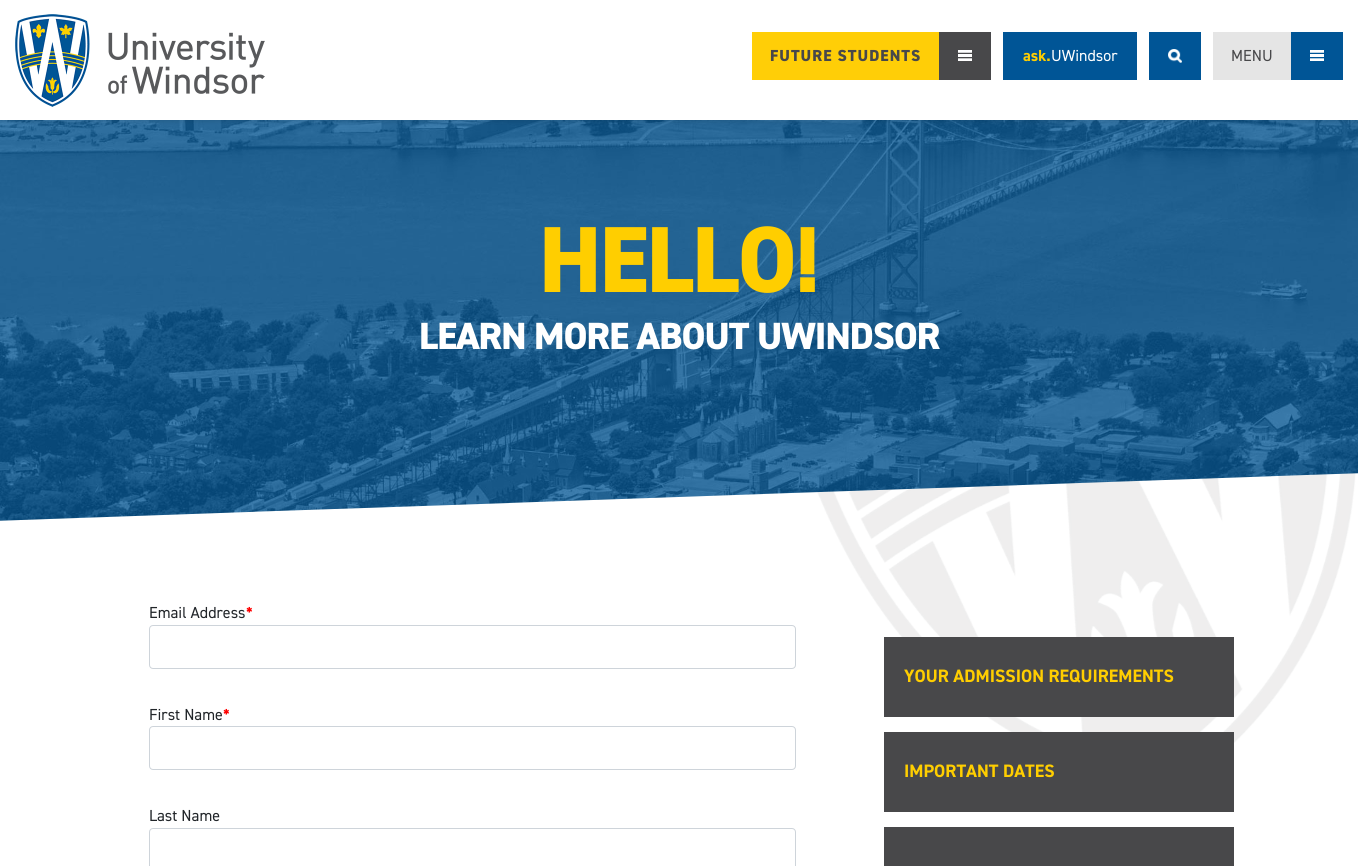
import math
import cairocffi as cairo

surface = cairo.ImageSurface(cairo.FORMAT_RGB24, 1358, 866)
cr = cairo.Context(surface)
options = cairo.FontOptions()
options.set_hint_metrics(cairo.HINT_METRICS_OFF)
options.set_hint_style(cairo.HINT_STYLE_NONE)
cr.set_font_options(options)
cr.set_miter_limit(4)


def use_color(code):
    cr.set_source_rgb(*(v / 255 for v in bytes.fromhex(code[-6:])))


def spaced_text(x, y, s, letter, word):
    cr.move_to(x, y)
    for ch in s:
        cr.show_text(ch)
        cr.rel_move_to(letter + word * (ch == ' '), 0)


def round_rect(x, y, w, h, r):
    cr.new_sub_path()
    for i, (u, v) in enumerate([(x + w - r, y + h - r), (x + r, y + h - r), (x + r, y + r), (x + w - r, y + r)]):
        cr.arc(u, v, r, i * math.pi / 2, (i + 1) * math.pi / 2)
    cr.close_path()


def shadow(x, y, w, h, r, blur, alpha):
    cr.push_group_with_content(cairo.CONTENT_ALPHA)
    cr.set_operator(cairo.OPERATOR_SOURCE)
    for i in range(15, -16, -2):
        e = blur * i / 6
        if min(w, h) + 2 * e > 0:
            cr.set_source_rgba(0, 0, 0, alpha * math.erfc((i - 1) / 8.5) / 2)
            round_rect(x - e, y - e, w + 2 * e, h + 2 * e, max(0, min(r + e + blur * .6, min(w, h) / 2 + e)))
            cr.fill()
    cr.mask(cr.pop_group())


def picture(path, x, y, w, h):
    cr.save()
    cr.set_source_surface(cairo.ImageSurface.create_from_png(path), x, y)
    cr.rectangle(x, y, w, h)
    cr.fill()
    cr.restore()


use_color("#ffffff")
cr.paint()
picture("img1.png", 817, 473, 539, 270)
picture("img6.png", 0, 120, 1358, 401)
use_color("#000000")
shadow(0, 2, 1358, 120, 0, 2, 0.08)
use_color("#ffffff")
cr.rectangle(0, 0, 1358, 120)
cr.fill()
picture("img2.png", 15, 14, 250, 93)
use_color("#ffce07")
cr.rectangle(752, 32, 187, 48)
cr.fill()
cr.select_font_face("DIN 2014 ExtraBold")
cr.set_font_size(16)
use_color("#48484a")
spaced_text(770, 61, "FUTURE STUDENTS", 1, 0)
cr.rectangle(939, 32, 52, 48)
cr.fill()
picture("img3.png", 958, 50, 14, 11)
use_color("#005596")
cr.rectangle(1003, 32, 134, 48)
cr.fill()
cr.select_font_face("DIN 2014", cairo.FONT_SLANT_NORMAL, cairo.FONT_WEIGHT_BOLD)
use_color("#ffce00")
cr.move_to(1023, 61)
cr.show_text("ask.")
cr.select_font_face("DIN 2014")
use_color("#ffffff")
cr.move_to(1051, 61)
cr.show_text("UWindsor")
use_color("#005596")
cr.rectangle(1149, 32, 52, 48)
cr.fill()
picture("img4.png", 1168, 49, 14, 14)
use_color("#e5e5e5")
cr.rectangle(1213, 32, 78, 48)
cr.fill()
use_color("#48484a")
cr.move_to(1231, 61)
cr.show_text("MENU")
use_color("#005596")
cr.rectangle(1291, 32, 52, 48)
cr.fill()
picture("img5.png", 1310, 50, 14, 11)
cr.select_font_face("DIN 2014 ExtraBold")
cr.set_font_size(94)
use_color("#ffce00")
spaced_text(539, 292, "HELLO!", -2, 0)
cr.set_font_size(38)
use_color("#ffffff")
spaced_text(419, 349, "LEARN MORE ABOUT UWINDSOR", -1, 0)
cr.select_font_face("DIN 2014")
cr.set_font_size(16)
use_color("#212529")
cr.move_to(149, 618)
cr.show_text("Email Address")
cr.select_font_face("DIN 2014", cairo.FONT_SLANT_NORMAL, cairo.FONT_WEIGHT_BOLD)
use_color("#ff0000")
cr.move_to(246, 618)
cr.show_text("*")
round_rect(149.5, 625.5, 646, 43, 3.5)
use_color("#ced4da")
cr.set_line_width(1)
cr.stroke()
cr.select_font_face("DIN 2014")
use_color("#212529")
cr.move_to(149, 720)
cr.show_text("First Name")
cr.select_font_face("DIN 2014", cairo.FONT_SLANT_NORMAL, cairo.FONT_WEIGHT_BOLD)
use_color("#ff0000")
cr.move_to(223, 720)
cr.show_text("*")
round_rect(149.5, 726.5, 646, 43, 3.5)
use_color("#ced4da")
cr.stroke()
cr.select_font_face("DIN 2014")
use_color("#212529")
cr.move_to(149, 821)
cr.show_text("Last Name")
round_rect(149.5, 828.5, 646, 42, 3.5)
use_color("#ced4da")
cr.stroke()
use_color("#48484a")
cr.rectangle(884, 637, 350, 80)
cr.fill()
cr.select_font_face("DIN 2014", cairo.FONT_SLANT_NORMAL, cairo.FONT_WEIGHT_BOLD)
cr.set_font_size(18)
use_color("#ffce00")
cr.move_to(904, 682)
cr.show_text("YOUR ADMISSION REQUIREMENTS")
use_color("#48484a")
cr.rectangle(884, 732, 350, 80)
cr.fill()
use_color("#ffce00")
cr.move_to(904, 777)
cr.show_text("IMPORTANT DATES")
use_color("#48484a")
cr.rectangle(884, 827, 350, 39)
cr.fill()
surface.write_to_png("result.png")
